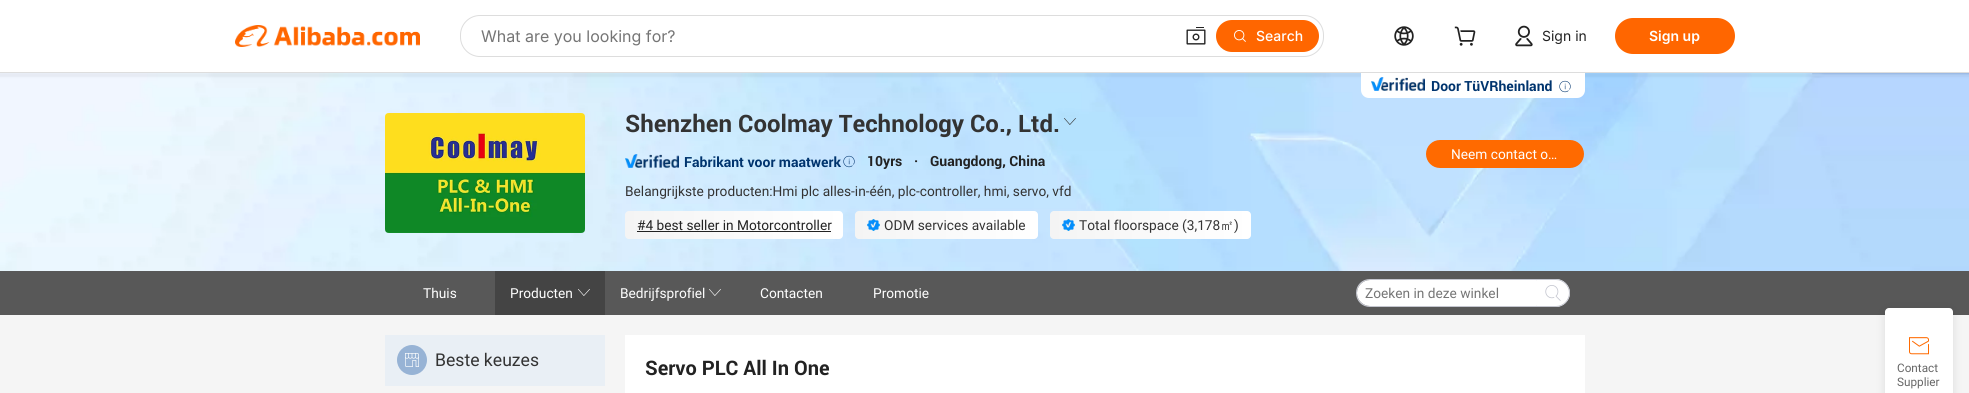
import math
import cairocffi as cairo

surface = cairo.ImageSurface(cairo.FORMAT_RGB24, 1969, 393)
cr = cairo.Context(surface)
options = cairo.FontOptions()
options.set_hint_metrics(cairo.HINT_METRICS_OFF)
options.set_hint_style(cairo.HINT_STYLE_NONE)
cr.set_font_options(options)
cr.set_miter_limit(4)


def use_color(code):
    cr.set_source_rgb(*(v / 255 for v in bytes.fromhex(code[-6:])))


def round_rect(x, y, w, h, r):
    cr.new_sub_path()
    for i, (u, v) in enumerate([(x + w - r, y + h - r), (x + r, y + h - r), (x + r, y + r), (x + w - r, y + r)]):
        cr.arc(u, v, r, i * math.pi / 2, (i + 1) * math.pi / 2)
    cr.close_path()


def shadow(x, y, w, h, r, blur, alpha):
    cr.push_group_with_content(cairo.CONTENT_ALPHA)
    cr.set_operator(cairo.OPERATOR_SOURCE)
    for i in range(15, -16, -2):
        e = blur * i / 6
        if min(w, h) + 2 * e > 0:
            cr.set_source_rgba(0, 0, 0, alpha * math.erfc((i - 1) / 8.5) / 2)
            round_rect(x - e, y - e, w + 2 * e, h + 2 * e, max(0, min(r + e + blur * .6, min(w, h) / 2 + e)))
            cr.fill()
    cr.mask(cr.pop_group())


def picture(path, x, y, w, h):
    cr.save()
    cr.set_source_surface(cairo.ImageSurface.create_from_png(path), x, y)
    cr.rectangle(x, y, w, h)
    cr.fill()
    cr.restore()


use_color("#ffffff")
cr.paint()
picture("img7.png", 0, 73, 1969, 198)
use_color("#000000")
shadow(-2, 73, 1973, 4, 0, 1, 0.05)
use_color("#dddddd")
cr.rectangle(0, 72, 1969, 1)
cr.fill()
picture("img1.png", 235, 25, 185, 22)
round_rect(460, 15, 864, 42, 20)
cr.fill()
use_color("#ffffff")
round_rect(461, 16, 862, 40, 19)
cr.fill()
cr.select_font_face("Inter")
cr.set_font_size(16)
use_color("#757575")
cr.move_to(481, 42)
cr.show_text("What are you looking for?")
picture("img2.png", 1186, 27, 20, 18)
use_color("#ff6600")
round_rect(1216, 20, 103, 32, 16)
cr.fill()
picture("img3.png", 1234, 30, 12, 12)
cr.select_font_face("Inter Medium")
cr.set_font_size(14)
use_color("#ffffff")
cr.move_to(1256, 41)
cr.show_text("Search")
picture("img4.png", 1394, 26, 20, 20)
picture("img5.png", 1454, 26, 22, 20)
picture("img6.png", 1515, 25, 18, 22)
cr.select_font_face("Inter")
use_color("#222222")
cr.move_to(1542, 41)
cr.show_text("Sign in")
use_color("#ff6600")
round_rect(1615, 18, 120, 36, 18)
cr.fill()
cr.select_font_face("Inter SemiBold")
use_color("#ffffff")
cr.move_to(1649, 41)
cr.show_text("Sign up")
cr.new_path()
cr.move_to(1361, 73)
cr.line_to(1585, 73)
cr.line_to(1585, 90)
cr.curve_to(1585, 94.5, 1581.5, 98, 1577, 98)
cr.line_to(1369, 98)
cr.curve_to(1364.5, 98, 1361, 94.5, 1361, 90)
cr.close_path()
cr.fill()
picture("img8.png", 1371, 77, 54, 14)
cr.select_font_face("Roboto", cairo.FONT_SLANT_NORMAL, cairo.FONT_WEIGHT_BOLD)
use_color("#00346e")
cr.move_to(1431, 91)
cr.show_text("Door TüVRheinland")
picture("img9.png", 1559, 80, 12, 13)
picture("img10.png", 385, 113, 200, 120)
cr.set_font_size(24)
use_color("#333333")
cr.move_to(625, 132)
cr.show_text("Shenzhen Coolmay Technology Co., Ltd.")
picture("img11.png", 1064, 118, 12, 7)
picture("img12.png", 625, 154, 54, 14)
cr.set_font_size(14)
use_color("#00346e")
cr.move_to(684, 167)
cr.show_text("Fabrikant voor maatwerk")
picture("img13.png", 843, 155, 12, 13)
use_color("#222222")
cr.move_to(867, 166)
cr.show_text("10yrs")
cr.move_to(914, 166)
cr.show_text("·")
cr.move_to(930, 166)
cr.show_text("Guangdong, China")
cr.select_font_face("Roboto")
use_color("#333333")
cr.move_to(625, 196)
cr.show_text("Belangrijkste producten:Hmi plc alles-in-één, plc-controller, hmi, servo, vfd")
gradient = cairo.LinearGradient(843, 225, 625, 225)
gradient.add_color_stop_rgba(0, 1, 1, 1, 1)
gradient.add_color_stop_rgba(1, 0.957, 0.957, 0.957, 1)
cr.set_source(gradient)
round_rect(625, 211, 218, 28, 4)
cr.fill()
use_color("#222222")
cr.move_to(637, 230)
cr.show_text("#4 best seller in Motorcontroller")
cr.rectangle(637, 231, 194, 1)
cr.fill()
gradient = cairo.LinearGradient(1038, 225, 855, 225)
gradient.add_color_stop_rgba(0, 1, 1, 1, 1)
gradient.add_color_stop_rgba(1, 0.957, 0.957, 0.957, 1)
cr.set_source(gradient)
round_rect(855, 211, 183, 28, 4)
cr.fill()
picture("img14.png", 867, 219, 13, 12)
use_color("#333333")
cr.move_to(884, 230)
cr.show_text("ODM services available")
gradient = cairo.LinearGradient(1251, 225, 1050, 225)
gradient.add_color_stop_rgba(0, 1, 1, 1, 1)
gradient.add_color_stop_rgba(1, 0.957, 0.957, 0.957, 1)
cr.set_source(gradient)
round_rect(1050, 211, 201, 28, 4)
cr.fill()
picture("img15.png", 1062, 219, 13, 12)
use_color("#333333")
cr.move_to(1079, 230)
cr.show_text("Total floorspace (3,178")
cr.select_font_face("WenQuanYi Zen Hei Medium")
cr.move_to(1220, 230)
cr.show_text("㎡")
cr.select_font_face("Roboto")
cr.move_to(1234, 230)
cr.show_text(")")
use_color("#ff6a00")
round_rect(1426, 140, 158, 28, 14)
cr.fill()
use_color("#ffffff")
cr.move_to(1451, 159)
cr.show_text("Neem contact o…")
use_color("#585858")
cr.rectangle(0, 271, 1969, 44)
cr.fill()
use_color("#ffffff")
cr.move_to(423, 298)
cr.show_text("Thuis")
use_color("#444444")
cr.rectangle(495, 271, 110, 44)
cr.fill()
use_color("#ffffff")
cr.move_to(510, 298)
cr.show_text("Producten")
picture("img16.png", 578, 289, 12, 7)
cr.move_to(620, 298)
cr.show_text("Bedrijfsprofiel")
picture("img17.png", 709, 289, 12, 7)
cr.move_to(760, 298)
cr.show_text("Contacten")
cr.move_to(873, 298)
cr.show_text("Promotie")
use_color("#c4c6cf")
cr.set_fill_rule(cairo.FILL_RULE_EVEN_ODD)
cr.new_path()
cr.move_to(1370, 279)
cr.line_to(1537, 279)
cr.line_to(1537, 307)
cr.line_to(1370, 307)
cr.curve_to(1362, 307, 1356, 301, 1356, 293)
cr.curve_to(1356, 285, 1362, 279, 1370, 279)
cr.close_path()
cr.move_to(1370, 280)
cr.line_to(1537, 280)
cr.line_to(1537, 306)
cr.line_to(1370, 306)
cr.curve_to(1363, 306, 1357, 300, 1357, 293)
cr.curve_to(1357, 286, 1363, 280, 1370, 280)
cr.close_path()
cr.fill()
use_color("#ffffff")
cr.new_path()
cr.move_to(1370, 280)
cr.line_to(1536.5, 280)
cr.curve_to(1537, 280, 1537, 280, 1537, 280.5)
cr.line_to(1537, 305.5)
cr.curve_to(1537, 306, 1537, 306, 1536.5, 306)
cr.line_to(1370, 306)
cr.curve_to(1363, 306, 1357, 300, 1357, 293)
cr.curve_to(1357, 286, 1363, 280, 1370, 280)
cr.close_path()
cr.fill()
use_color("#757575")
cr.move_to(1365, 298)
cr.show_text("Zoeken in deze winkel")
use_color("#ffffff")
cr.new_path()
cr.move_to(1537, 279)
cr.line_to(1556, 279)
cr.curve_to(1563.5, 279, 1570, 285.5, 1570, 293)
cr.curve_to(1570, 300.5, 1563.5, 307, 1556, 307)
cr.line_to(1537, 307)
cr.close_path()
cr.fill()
use_color("#c4c6cf")
cr.new_path()
cr.move_to(1537, 279)
cr.line_to(1556, 279)
cr.curve_to(1563.5, 279, 1570, 285.5, 1570, 293)
cr.curve_to(1570, 300.5, 1563.5, 307, 1556, 307)
cr.line_to(1537, 307)
cr.close_path()
cr.move_to(1537, 280)
cr.line_to(1556, 280)
cr.curve_to(1563, 280, 1569, 286, 1569, 293)
cr.curve_to(1569, 300, 1563, 306, 1556, 306)
cr.line_to(1537, 306)
cr.close_path()
cr.fill()
picture("img18.png", 1545, 285, 16, 16)
use_color("#f5f5f5")
cr.rectangle(0, 315, 1969, 78)
cr.fill()
use_color("#e9eff5")
cr.rectangle(385, 335, 220, 51)
cr.fill()
use_color("#97b3d5")
cr.arc(412, 360, 15, 0, 2 * math.pi)
cr.fill()
picture("img19.png", 405, 353, 14, 14)
cr.set_font_size(18)
use_color("#333333")
cr.move_to(435, 366)
cr.show_text("Beste keuzes")
use_color("#ffffff")
cr.rectangle(625, 335, 960, 58)
cr.fill()
cr.select_font_face("Roboto", cairo.FONT_SLANT_NORMAL, cairo.FONT_WEIGHT_BOLD)
cr.set_font_size(20)
use_color("#222222")
cr.move_to(645, 375)
cr.show_text("Servo PLC All In One")
use_color("#000000")
shadow(1885, 310, 68, 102, 4, 5, 0.1)
use_color("#ffffff")
round_rect(1885, 308, 68, 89, 4)
cr.fill()
picture("img20.png", 1909, 337, 20, 18)
cr.select_font_face("Roboto")
cr.set_font_size(12)
use_color("#666666")
cr.move_to(1897, 372)
cr.show_text("Contact")
cr.move_to(1897, 386)
cr.show_text("Supplier")
surface.write_to_png("result.png")
